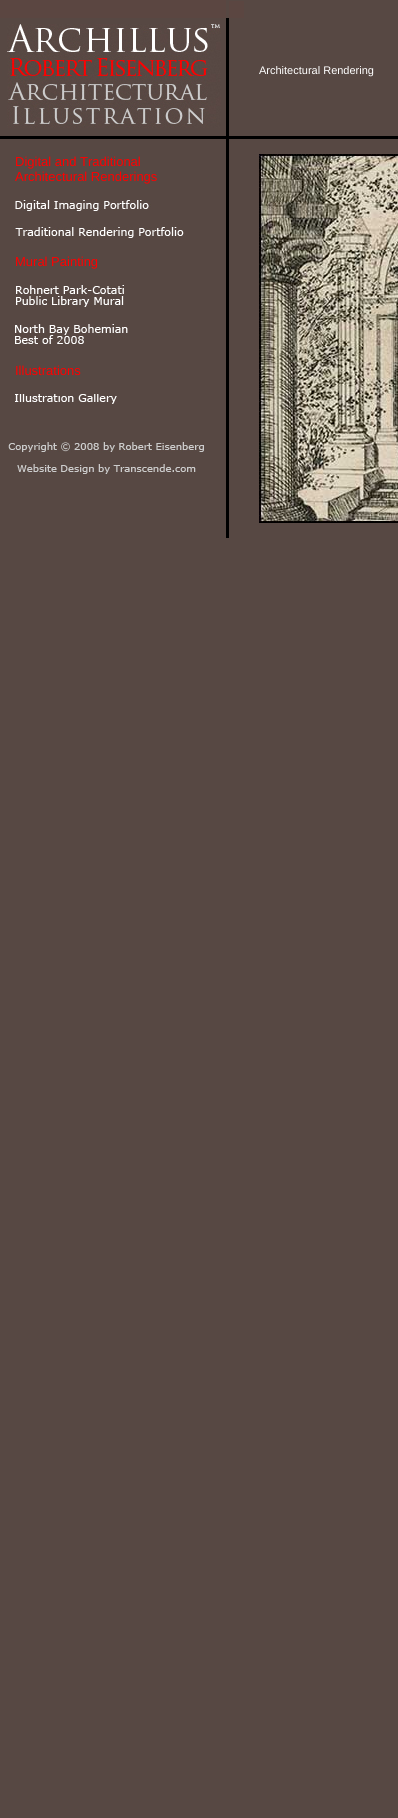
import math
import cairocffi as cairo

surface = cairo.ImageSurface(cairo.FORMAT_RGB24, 398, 1818)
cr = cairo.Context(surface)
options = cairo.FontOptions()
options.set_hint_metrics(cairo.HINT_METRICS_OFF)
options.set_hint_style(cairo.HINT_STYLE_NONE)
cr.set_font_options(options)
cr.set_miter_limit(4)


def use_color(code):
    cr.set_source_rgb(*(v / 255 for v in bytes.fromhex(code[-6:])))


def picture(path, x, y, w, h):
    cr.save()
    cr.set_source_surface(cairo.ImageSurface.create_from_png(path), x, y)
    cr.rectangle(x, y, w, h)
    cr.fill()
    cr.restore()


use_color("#574843")
cr.paint()
use_color("#5b4641")
cr.rectangle(0, 0, 226, 18)
cr.fill()
cr.rectangle(229, 1, 15, 17)
cr.fill()
picture("img1.png", 7, 24, 214, 104)
use_color("#000000")
cr.rectangle(226, 18, 3, 118)
cr.fill()
cr.select_font_face("Liberation Sans")
cr.set_font_size(11)
use_color("#ffffff")
cr.move_to(259, 74)
cr.show_text("Architectural Rendering")
use_color("#000000")
cr.rectangle(0, 136, 398, 3)
cr.fill()
cr.set_font_size(13)
use_color("#ff0000")
cr.move_to(15, 166)
cr.show_text("Digital and Traditional")
cr.move_to(15, 181)
cr.show_text("Architectural Renderings")
picture("img2.png", 15, 200, 136, 11)
picture("img3.png", 15, 227, 169, 11)
cr.move_to(15, 266)
cr.show_text("Mural Painting")
picture("img4.png", 16, 285, 108, 22)
picture("img5.png", 15, 324, 113, 20)
cr.move_to(15, 375)
cr.show_text("Illustrations")
picture("img6.png", 15, 394, 102, 10)
picture("img7.png", 8, 442, 196, 10)
picture("img8.png", 17, 464, 179, 10)
use_color("#000000")
cr.rectangle(226, 139, 3, 399)
cr.fill()
picture("img9.png", 259, 154, 139, 369)
surface.write_to_png("result.png")
